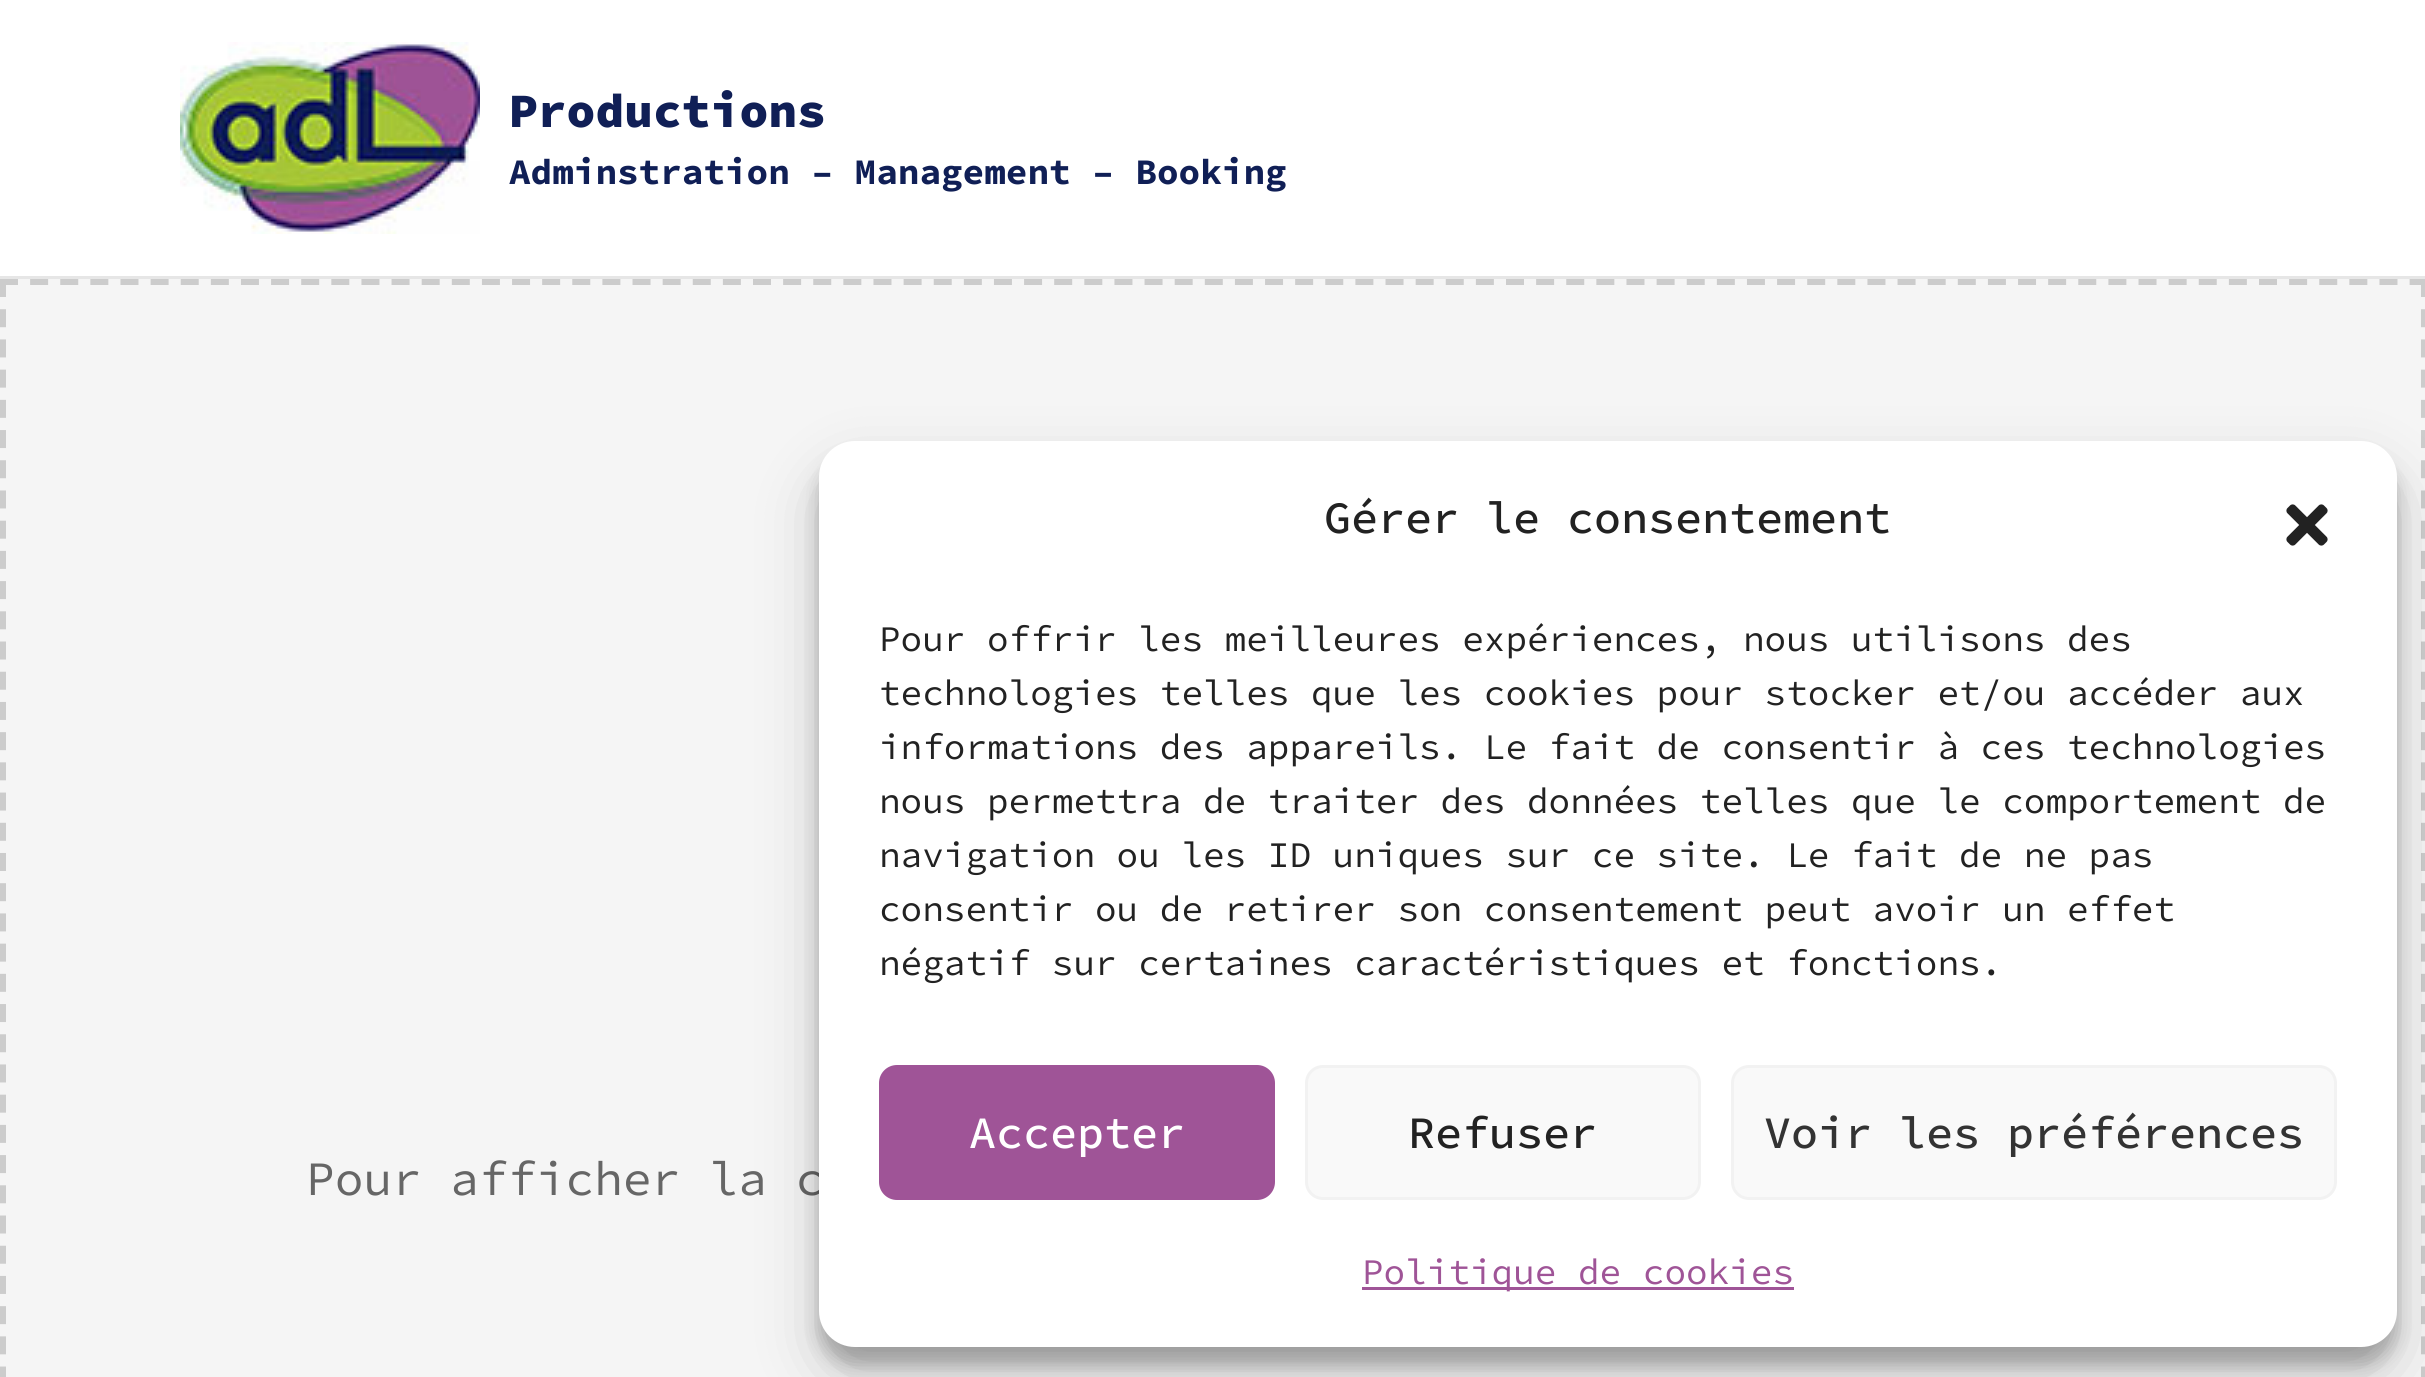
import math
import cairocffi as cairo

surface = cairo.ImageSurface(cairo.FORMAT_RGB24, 2425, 1377)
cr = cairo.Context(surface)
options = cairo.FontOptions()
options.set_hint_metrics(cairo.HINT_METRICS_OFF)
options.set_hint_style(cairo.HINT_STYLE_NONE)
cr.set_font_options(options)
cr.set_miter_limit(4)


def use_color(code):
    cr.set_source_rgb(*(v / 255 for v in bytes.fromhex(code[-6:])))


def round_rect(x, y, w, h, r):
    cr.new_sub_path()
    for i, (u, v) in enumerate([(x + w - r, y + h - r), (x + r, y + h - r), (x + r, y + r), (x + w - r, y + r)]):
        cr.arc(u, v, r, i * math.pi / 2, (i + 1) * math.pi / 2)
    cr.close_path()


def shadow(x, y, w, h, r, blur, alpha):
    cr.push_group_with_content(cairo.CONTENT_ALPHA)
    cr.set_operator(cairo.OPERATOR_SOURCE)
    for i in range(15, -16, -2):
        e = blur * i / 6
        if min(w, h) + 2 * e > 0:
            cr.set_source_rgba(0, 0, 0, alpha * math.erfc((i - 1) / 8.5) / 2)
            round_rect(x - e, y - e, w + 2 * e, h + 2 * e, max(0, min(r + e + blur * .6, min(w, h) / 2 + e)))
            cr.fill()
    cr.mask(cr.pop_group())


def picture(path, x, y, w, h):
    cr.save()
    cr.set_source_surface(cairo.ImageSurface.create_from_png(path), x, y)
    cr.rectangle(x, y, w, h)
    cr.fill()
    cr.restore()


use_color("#ffffff")
cr.paint()
use_color("#e6e6e6")
cr.rectangle(0, 276, 2425, 3)
cr.fill()
picture("img1.png", 180, 42, 300, 192)
cr.select_font_face("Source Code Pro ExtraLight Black")
cr.set_font_size(48)
use_color("#101f56")
cr.move_to(509, 127)
cr.show_text("Productions")
cr.select_font_face("Source Code Pro ExtraLight", cairo.FONT_SLANT_NORMAL, cairo.FONT_WEIGHT_BOLD)
cr.set_font_size(36)
cr.move_to(509, 184)
cr.show_text("Adminstration – Management – Booking")
use_color("#f5f5f5")
cr.rectangle(0, 279, 2425, 1098)
cr.fill()
cr.new_path()
cr.move_to(0, 282)
cr.line_to(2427, 282)
use_color("#cccccc")
cr.set_line_width(6)
cr.set_dash([18, 12.12])
cr.stroke()
cr.new_path()
cr.move_to(2424, 279)
cr.line_to(2424, 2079)
cr.set_dash([18, 12.21])
cr.stroke()
cr.new_path()
cr.move_to(3, 279)
cr.line_to(3, 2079)
cr.stroke()
cr.select_font_face("Source Code Pro ExtraLight")
cr.set_font_size(48)
use_color("#666666")
cr.move_to(306, 1195)
cr.show_text("Pour afficher la c")
use_color("#000000")
shadow(819, 459, 1578, 906, 36, 9, 0.23)
shadow(819, 471, 1578, 906, 36, 30, 0.19)
use_color("#ffffff")
round_rect(819, 441, 1578, 906, 36)
cr.fill()
cr.select_font_face("Source Code Pro ExtraLight Medium")
cr.set_font_size(45)
use_color("#222222")
cr.move_to(1324, 533)
cr.show_text("Gérer le consentement")
picture("img2.png", 2286, 504, 42, 42)
cr.select_font_face("Source Code Pro ExtraLight")
cr.set_font_size(36)
cr.move_to(879, 651)
cr.show_text("Pour offrir les meilleures expériences, nous utilisons des")
cr.move_to(879, 705)
cr.show_text("technologies telles que les cookies pour stocker et/ou accéder aux")
cr.move_to(879, 759)
cr.show_text("informations des appareils. Le fait de consentir à ces technologies")
cr.move_to(879, 813)
cr.show_text("nous permettra de traiter des données telles que le comportement de")
cr.move_to(879, 867)
cr.show_text("navigation ou les ID uniques sur ce site. Le fait de ne pas")
cr.move_to(879, 921)
cr.show_text("consentir ou de retirer son consentement peut avoir un effet")
cr.move_to(879, 975)
cr.show_text("négatif sur certaines caractéristiques et fonctions.")
use_color("#9f5497")
round_rect(880.5, 1066.5, 393, 132, 16.5)
cr.fill_preserve()
cr.set_line_width(3)
cr.set_dash([])
cr.stroke()
cr.select_font_face("Source Code Pro ExtraLight Medium")
cr.set_font_size(45)
use_color("#ffffff")
cr.move_to(969, 1148)
cr.show_text("Accepter")
use_color("#f9f9f9")
round_rect(1306.5, 1066.5, 393, 132, 16.5)
cr.fill_preserve()
use_color("#f2f2f2")
cr.stroke()
use_color("#222222")
cr.move_to(1408, 1148)
cr.show_text("Refuser")
use_color("#f9f9f9")
round_rect(1732.5, 1066.5, 603, 132, 16.5)
cr.fill_preserve()
use_color("#f2f2f2")
cr.stroke()
use_color("#333333")
cr.move_to(1764, 1148)
cr.show_text("Voir les préférences")
use_color("#9f5497")
cr.rectangle(1362, 1287, 432, 3)
cr.fill()
cr.select_font_face("Source Code Pro ExtraLight")
cr.set_font_size(36)
cr.move_to(1362, 1284)
cr.show_text("Politique de cookies")
surface.write_to_png("result.png")
